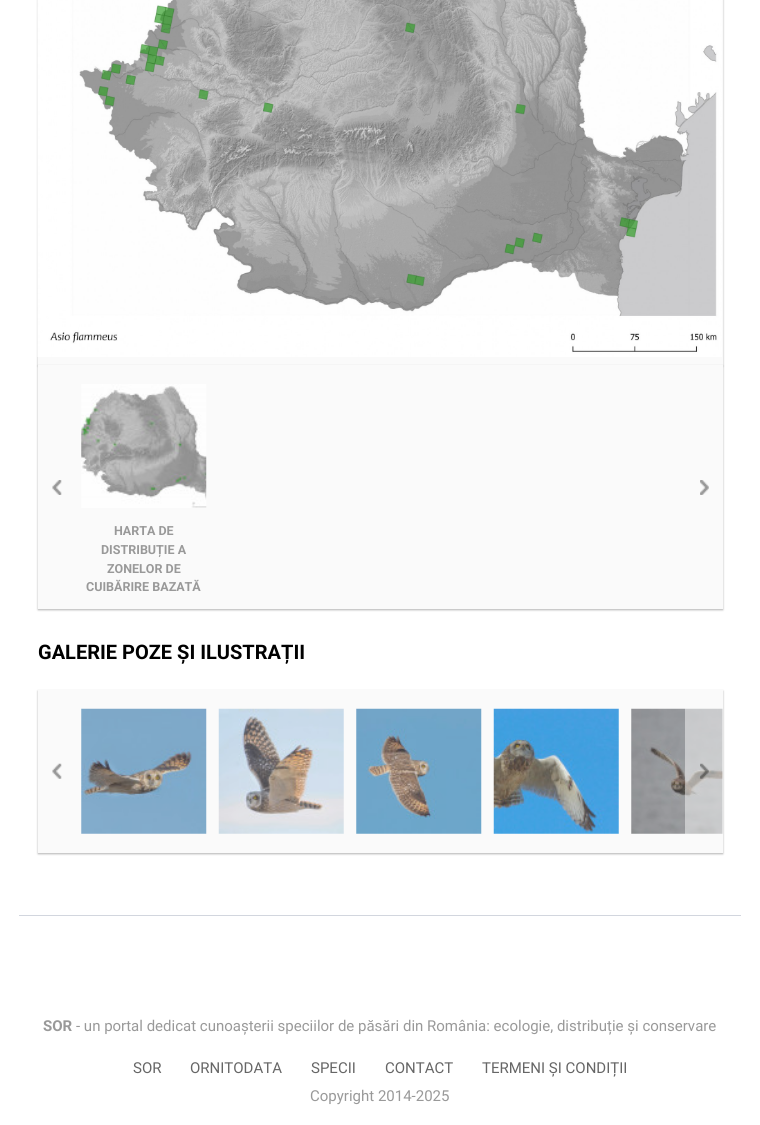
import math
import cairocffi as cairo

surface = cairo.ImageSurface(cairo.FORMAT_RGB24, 760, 1125)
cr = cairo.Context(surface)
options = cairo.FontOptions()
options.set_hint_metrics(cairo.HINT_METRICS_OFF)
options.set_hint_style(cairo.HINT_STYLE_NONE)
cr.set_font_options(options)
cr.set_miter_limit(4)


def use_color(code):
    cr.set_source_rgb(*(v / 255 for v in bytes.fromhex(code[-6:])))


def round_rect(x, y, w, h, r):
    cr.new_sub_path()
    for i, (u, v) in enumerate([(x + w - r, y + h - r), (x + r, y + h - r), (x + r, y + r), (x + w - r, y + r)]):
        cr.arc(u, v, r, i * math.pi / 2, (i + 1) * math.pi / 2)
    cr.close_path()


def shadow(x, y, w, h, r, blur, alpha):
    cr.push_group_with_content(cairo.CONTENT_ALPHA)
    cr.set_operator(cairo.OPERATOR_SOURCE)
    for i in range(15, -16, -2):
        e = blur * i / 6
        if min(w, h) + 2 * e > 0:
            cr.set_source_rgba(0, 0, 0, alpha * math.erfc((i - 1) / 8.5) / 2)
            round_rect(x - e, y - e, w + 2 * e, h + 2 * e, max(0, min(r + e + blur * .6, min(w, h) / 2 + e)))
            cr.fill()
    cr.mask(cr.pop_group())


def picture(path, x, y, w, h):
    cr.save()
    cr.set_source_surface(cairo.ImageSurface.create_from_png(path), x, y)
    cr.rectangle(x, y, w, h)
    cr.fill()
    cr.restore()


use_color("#ffffff")
cr.paint()
use_color("#000000")
shadow(38, -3, 685, 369, 0, 1, 0.3)
use_color("#fafafa")
cr.rectangle(38, 0, 685, 365)
cr.fill()
picture("img1.png", 37, 0, 685, 357)
use_color("#000000")
shadow(38, 366, 685, 244, 0, 1, 0.3)
use_color("#fafafa")
cr.rectangle(38, 365, 685, 244)
cr.fill()
picture("img2.png", 52, 480, 10, 15)
picture("img3.png", 700, 480, 9, 15)
picture("img4.png", 81, 384, 126, 124)
cr.select_font_face("Roboto", cairo.FONT_SLANT_NORMAL, cairo.FONT_WEIGHT_BOLD)
cr.set_font_size(12.5)
use_color("#999999")
cr.move_to(114, 535)
cr.show_text("HARTA DE")
cr.move_to(101, 554)
cr.show_text("DISTRIBUȚIE A")
cr.move_to(107, 573)
cr.show_text("ZONELOR DE")
cr.move_to(86, 591)
cr.show_text("CUIBĂRIRE BAZATĂ")
cr.set_font_size(20)
use_color("#000000")
cr.move_to(38, 659)
cr.show_text("GALERIE POZE ȘI ILUSTRAȚII")
use_color("#000000")
shadow(38, 691, 685, 163, 0, 1, 0.3)
use_color("#fafafa")
cr.rectangle(38, 690, 685, 163)
cr.fill()
picture("img5.png", 81, 708, 126, 126)
picture("img6.png", 218, 708, 126, 126)
picture("img7.png", 356, 708, 126, 126)
picture("img8.png", 493, 708, 126, 126)
picture("img9.png", 631, 708, 92, 126)
picture("img10.png", 52, 763, 10, 16)
cr.set_source_rgba(0.98, 0.98, 0.98, 0.5)
cr.rectangle(685, 708, 38, 126)
cr.fill()
picture("img11.png", 700, 763, 9, 16)
use_color("#d2d6de")
cr.rectangle(19, 915, 722, 1)
cr.fill()
cr.set_font_size(15)
use_color("#999999")
cr.move_to(43, 1031)
cr.show_text("SOR")
cr.select_font_face("Roboto")
cr.move_to(76, 1031)
cr.show_text("- un portal dedicat cunoașterii speciilor de păsări din România: ecologie, distribuție și conservare")
use_color("#666666")
cr.move_to(133, 1073)
cr.show_text("SOR")
cr.move_to(190, 1073)
cr.show_text("ORNITODATA")
cr.move_to(311, 1073)
cr.show_text("SPECII")
cr.move_to(385, 1073)
cr.show_text("CONTACT")
cr.move_to(482, 1073)
cr.show_text("TERMENI ȘI CONDIȚII")
use_color("#999999")
cr.move_to(310, 1101)
cr.show_text("Copyright 2014-2025")
surface.write_to_png("result.png")
